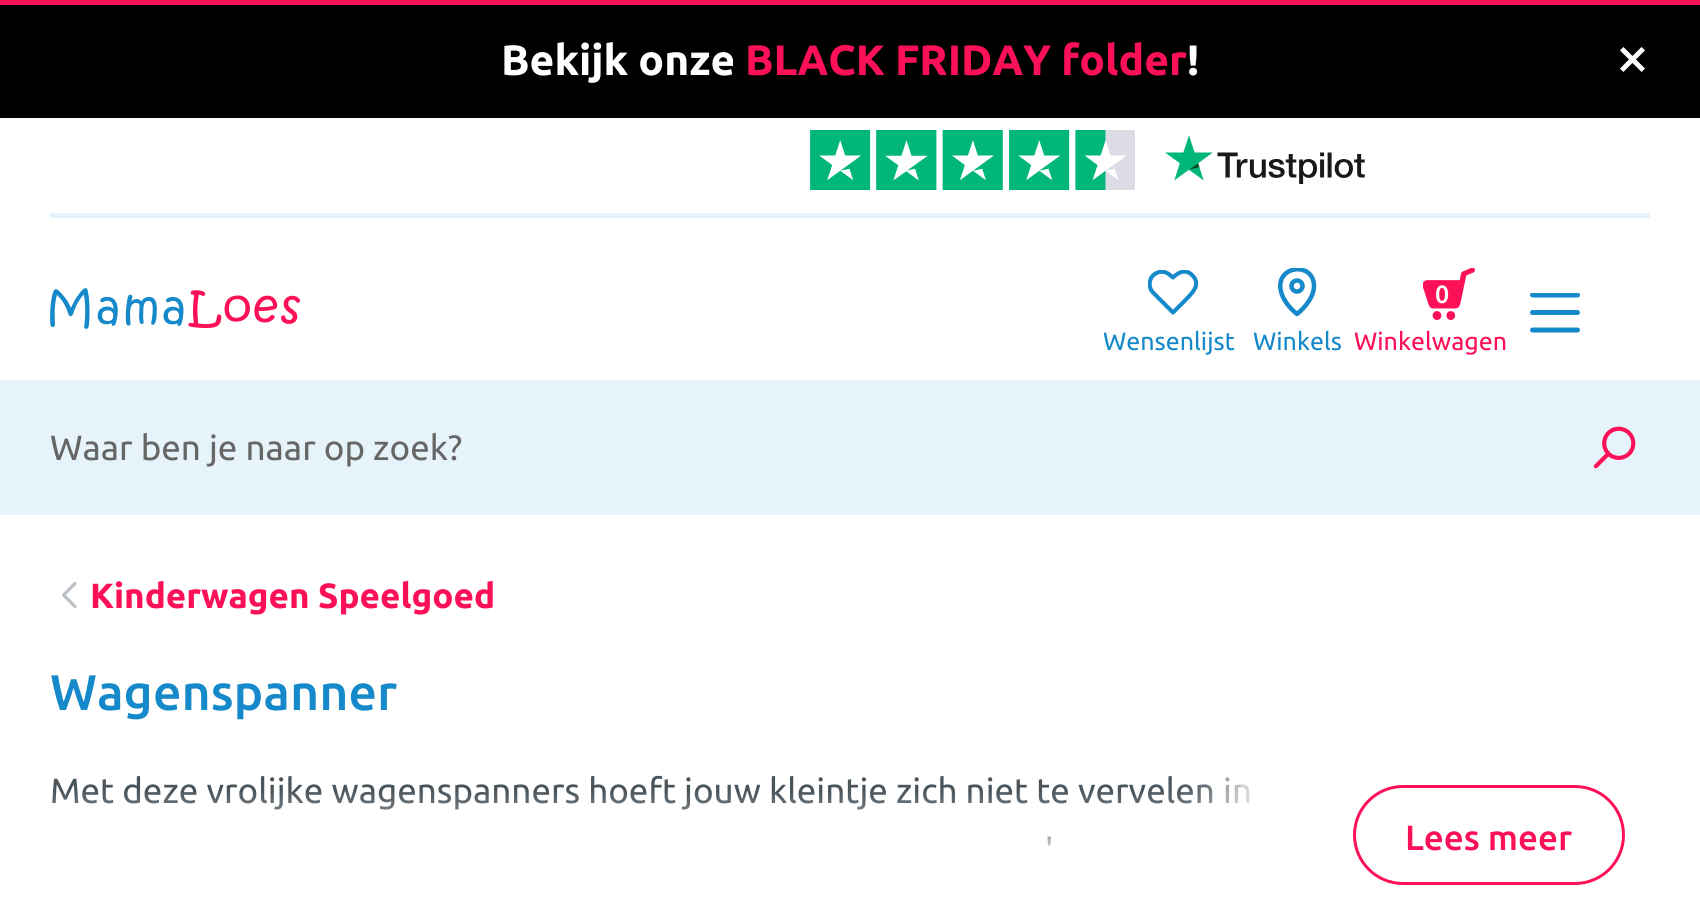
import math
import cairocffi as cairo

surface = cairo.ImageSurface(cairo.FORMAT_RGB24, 1700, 904)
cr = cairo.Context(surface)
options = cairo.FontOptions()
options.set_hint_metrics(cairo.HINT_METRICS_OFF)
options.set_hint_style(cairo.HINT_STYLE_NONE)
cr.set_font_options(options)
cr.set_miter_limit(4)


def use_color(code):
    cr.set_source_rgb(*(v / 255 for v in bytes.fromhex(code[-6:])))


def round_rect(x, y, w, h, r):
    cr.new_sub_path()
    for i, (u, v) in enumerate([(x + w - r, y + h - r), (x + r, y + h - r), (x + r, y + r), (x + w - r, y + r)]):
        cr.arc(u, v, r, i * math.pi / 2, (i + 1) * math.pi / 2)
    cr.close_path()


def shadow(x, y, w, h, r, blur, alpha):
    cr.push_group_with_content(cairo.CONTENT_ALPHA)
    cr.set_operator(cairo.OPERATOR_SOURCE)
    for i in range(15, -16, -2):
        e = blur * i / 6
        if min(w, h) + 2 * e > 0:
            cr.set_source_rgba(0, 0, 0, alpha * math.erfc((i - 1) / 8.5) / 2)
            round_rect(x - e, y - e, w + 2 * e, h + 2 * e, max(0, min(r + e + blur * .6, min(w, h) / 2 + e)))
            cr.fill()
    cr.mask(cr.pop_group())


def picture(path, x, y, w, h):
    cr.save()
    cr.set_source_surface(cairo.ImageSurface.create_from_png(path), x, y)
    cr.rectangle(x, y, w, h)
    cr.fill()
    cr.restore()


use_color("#ffffff")
cr.paint()
use_color("#000000")
cr.rectangle(0, 5, 1700, 113)
cr.fill()
use_color("#fc1057")
cr.rectangle(0, 0, 1700, 5)
cr.fill()
cr.select_font_face("Ubuntu", cairo.FONT_SLANT_NORMAL, cairo.FONT_WEIGHT_BOLD)
cr.set_font_size(42.5)
use_color("#ffffff")
cr.move_to(501, 75)
cr.show_text("Bekijk onze")
use_color("#fc1057")
cr.move_to(745, 75)
cr.show_text("BLACK FRIDAY folder")
use_color("#ffffff")
cr.move_to(1187, 75)
cr.show_text("!")
cr.select_font_face("Ubuntu")
cr.set_font_size(62)
cr.move_to(1615, 78)
cr.show_text("×")
use_color("#e7f3fa")
cr.rectangle(50, 213, 1600, 5)
cr.fill()
picture("img1.png", 810, 130, 555, 60)
picture("img2.png", 50, 288, 250, 41)
cr.save()
cr.rectangle(1148, 270, 50, 45)
cr.clip()
cr.new_path()
cr.move_to(1192.5, 275.5)
cr.curve_to(1186, 268.5, 1178.5, 272, 1173, 277.5)
cr.line_to(1170.5, 275.5)
cr.curve_to(1165.5, 270.5, 1158, 270.5, 1153, 275.5)
cr.curve_to(1148.5, 280, 1148.5, 288, 1153, 292.5)
cr.line_to(1173, 312.5)
cr.line_to(1184.5, 301)
cr.curve_to(1191, 294, 1202, 285, 1192.5, 275.5)
cr.close_path()
use_color("#1589c9")
cr.set_line_width(4.1)
cr.set_line_cap(cairo.LINE_CAP_ROUND)
cr.set_line_join(cairo.LINE_JOIN_ROUND)
cr.stroke()
cr.restore()
cr.set_font_size(25)
use_color("#1589c9")
cr.move_to(1103, 350)
cr.show_text("Wensenlijst")
cr.save()
cr.rectangle(1278, 268, 40, 50)
cr.clip()
cr.new_path()
cr.move_to(1314, 286)
cr.curve_to(1314, 301, 1297, 314, 1297, 314)
cr.curve_to(1290, 308.5, 1283, 300, 1281, 291.5)
cr.curve_to(1274.5, 265, 1314, 261, 1314, 286)
cr.close_path()
cr.set_line_width(4.5)
cr.set_line_join(cairo.LINE_JOIN_ROUND)
cr.stroke()
cr.restore()
cr.arc(1297, 286, 5.5, 0, 2 * math.pi)
cr.set_line_width(4.5)
cr.stroke()
cr.move_to(1253, 350)
cr.show_text("Winkels")
picture("img3.png", 1423, 268, 52, 52)
cr.select_font_face("Ubuntu Medium")
use_color("#ffffff")
cr.move_to(1435, 303)
cr.show_text("0")
cr.select_font_face("Ubuntu")
use_color("#fc1057")
cr.move_to(1354, 350)
cr.show_text("Winkelwagen")
picture("img4.png", 1530, 293, 50, 40)
use_color("#e7f3fa")
cr.rectangle(0, 380, 1700, 135)
cr.fill()
cr.set_font_size(35)
use_color("#666666")
cr.move_to(50, 460)
cr.show_text("Waar ben je naar op zoek?")
picture("img5.png", 1593, 426, 43, 43)
cr.new_path()
cr.move_to(75, 606.5)
cr.line_to(63.5, 595)
cr.line_to(75, 583.5)
use_color("#bcc1c7")
cr.set_line_width(3.3)
cr.set_line_cap(cairo.LINE_CAP_ROUND)
cr.set_line_join(cairo.LINE_JOIN_ROUND)
cr.stroke()
cr.select_font_face("Ubuntu", cairo.FONT_SLANT_NORMAL, cairo.FONT_WEIGHT_BOLD)
use_color("#fc1057")
cr.move_to(90, 608)
cr.show_text("Kinderwagen Speelgoed")
cr.select_font_face("Ubuntu Medium")
cr.set_font_size(50)
use_color("#1589c9")
cr.move_to(50, 710)
cr.show_text("Wagenspanner")
cr.select_font_face("Ubuntu")
cr.set_font_size(35)
use_color("#4a545b")
cr.move_to(50, 803)
cr.show_text("Met deze vrolijke wagenspanners hoeft jouw kleintje zich niet te vervelen in")
cr.move_to(1045, 863)
cr.show_text("'")
gradient = cairo.LinearGradient(850, 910, 850, 760)
gradient.add_color_stop_rgba(0.2, 1, 1, 1, 1)
gradient.add_color_stop_rgba(0.8, 1, 1, 1, 0)
cr.set_source(gradient)
cr.rectangle(52, 792, 1198, 54)
cr.fill()
use_color("#ffffff")
shadow(1228, 760, 372, 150, 0, 25, 1)
round_rect(1354.5, 786.5, 269, 97, 48.5)
use_color("#fc1057")
cr.set_line_width(3)
cr.set_line_cap(cairo.LINE_CAP_BUTT)
cr.set_line_join(cairo.LINE_JOIN_MITER)
cr.stroke()
cr.select_font_face("Ubuntu Medium")
cr.move_to(1405, 850)
cr.show_text("Lees meer")
surface.write_to_png("result.png")
